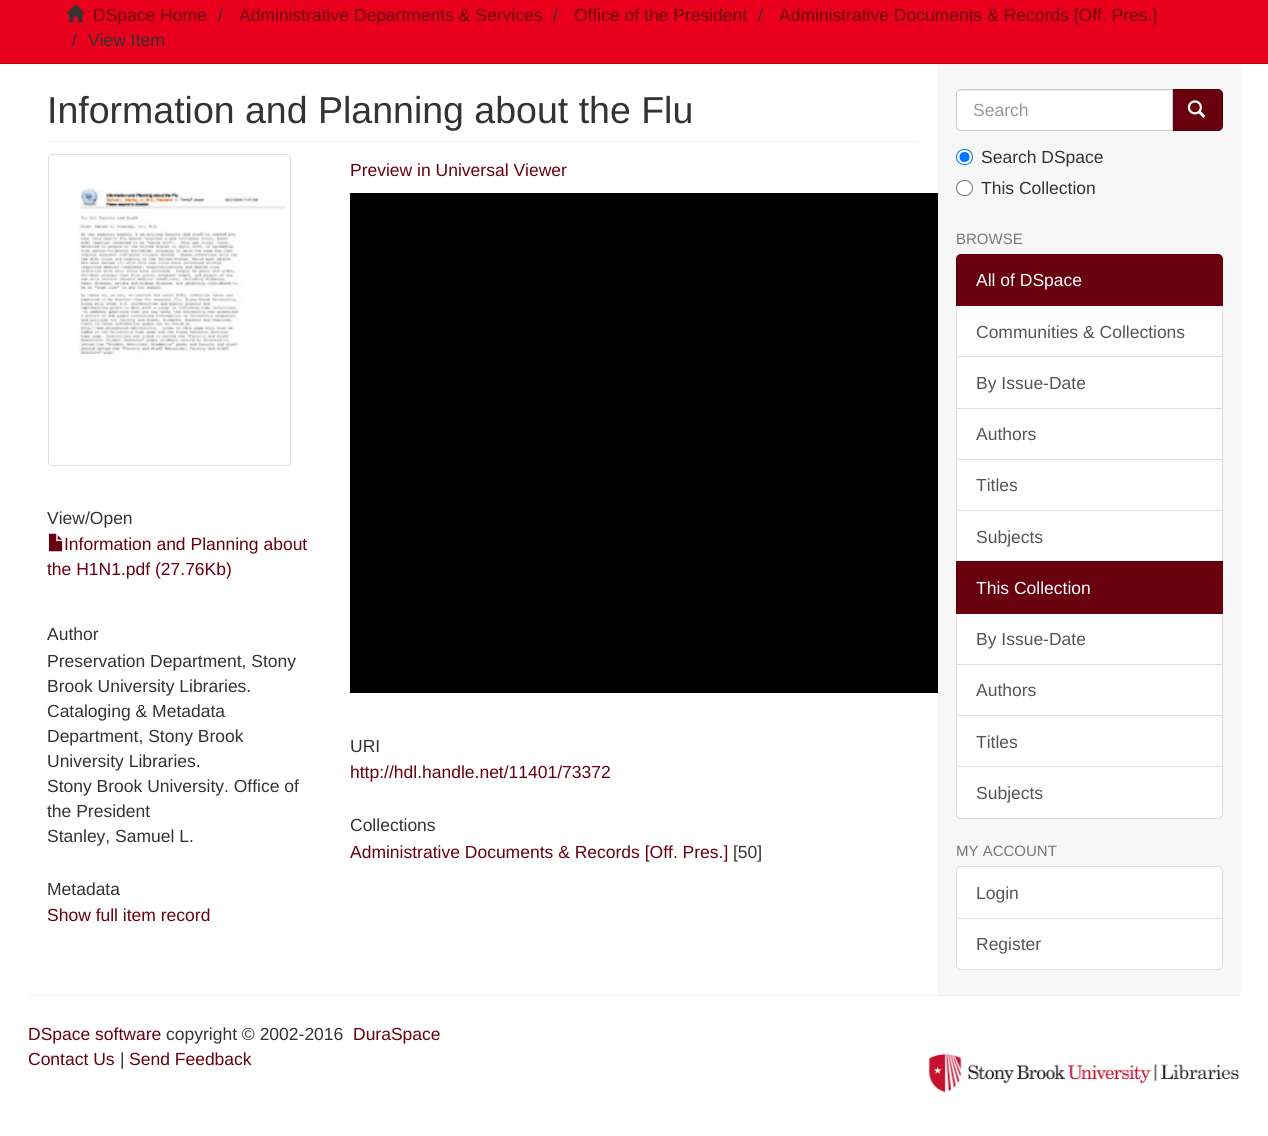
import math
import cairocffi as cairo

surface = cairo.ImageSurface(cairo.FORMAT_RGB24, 1268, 1136)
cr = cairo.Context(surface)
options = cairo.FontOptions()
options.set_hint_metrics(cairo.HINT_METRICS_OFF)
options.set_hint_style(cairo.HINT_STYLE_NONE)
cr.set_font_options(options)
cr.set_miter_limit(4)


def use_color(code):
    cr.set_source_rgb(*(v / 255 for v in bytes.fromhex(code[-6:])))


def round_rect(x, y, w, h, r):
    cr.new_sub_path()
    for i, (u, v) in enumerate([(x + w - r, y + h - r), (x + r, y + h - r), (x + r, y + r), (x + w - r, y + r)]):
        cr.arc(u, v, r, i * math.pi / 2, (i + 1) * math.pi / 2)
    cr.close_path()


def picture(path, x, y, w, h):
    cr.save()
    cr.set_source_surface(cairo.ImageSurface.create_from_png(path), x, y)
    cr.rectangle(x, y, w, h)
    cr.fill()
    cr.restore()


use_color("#ffffff")
cr.paint()
use_color("#e8001d")
cr.rectangle(0, 0, 1268, 63)
cr.fill()
use_color("#b50017")
cr.rectangle(0, 63, 1268, 1)
cr.fill()
picture("img1.png", 66, 4, 20, 19)
cr.select_font_face("Liberation Sans")
cr.set_font_size(17.5)
use_color("#68000d")
cr.move_to(93, 21)
cr.show_text("DSpace Home")
use_color("#333333")
cr.move_to(218, 21)
cr.show_text("/")
use_color("#68000d")
cr.move_to(239, 21)
cr.show_text("Administrative Departments & Services")
use_color("#333333")
cr.move_to(553, 21)
cr.show_text("/")
use_color("#68000d")
cr.move_to(574, 21)
cr.show_text("Office of the President")
use_color("#333333")
cr.move_to(758, 21)
cr.show_text("/")
use_color("#68000d")
cr.move_to(779, 21)
cr.show_text("Administrative Documents & Records [Off. Pres.]")
use_color("#333333")
cr.move_to(72, 46)
cr.show_text("/")
cr.move_to(88, 46)
cr.show_text("View Item")
use_color("#eeeeee")
cr.rectangle(48, 141, 871, 1)
cr.fill()
cr.set_font_size(37.5)
use_color("#333333")
cr.move_to(47, 123)
cr.show_text("Information and Planning about the Flu")
round_rect(48.5, 154.5, 242, 311, 4.5)
use_color("#dddddd")
cr.set_line_width(1)
cr.stroke()
picture("img2.png", 77, 188, 208, 171)
cr.set_font_size(17.5)
use_color("#333333")
cr.move_to(47, 524)
cr.show_text("View/Open")
picture("img3.png", 48, 533, 15, 19)
use_color("#68000d")
cr.move_to(64, 550)
cr.show_text("Information and Planning about")
cr.move_to(47, 575)
cr.show_text("the H1N1.pdf (27.76Kb)")
use_color("#333333")
cr.move_to(47, 640)
cr.show_text("Author")
cr.move_to(47, 667)
cr.show_text("Preservation Department, Stony")
cr.move_to(47, 692)
cr.show_text("Brook University Libraries.")
cr.move_to(47, 717)
cr.show_text("Cataloging & Metadata")
cr.move_to(47, 742)
cr.show_text("Department, Stony Brook")
cr.move_to(47, 767)
cr.show_text("University Libraries.")
cr.move_to(47, 792)
cr.show_text("Stony Brook University. Office of")
cr.move_to(47, 817)
cr.show_text("the President")
cr.move_to(47, 842)
cr.show_text("Stanley, Samuel L.")
cr.move_to(47, 895)
cr.show_text("Metadata")
use_color("#68000d")
cr.move_to(47, 921)
cr.show_text("Show full item record")
cr.move_to(350, 176)
cr.show_text("Preview in Universal Viewer")
use_color("#000000")
cr.rectangle(350, 193, 588, 500)
cr.fill()
use_color("#333333")
cr.move_to(350, 752)
cr.show_text("URI")
use_color("#68000d")
cr.move_to(350, 778)
cr.show_text("http://hdl.handle.net/11401/73372")
use_color("#333333")
cr.move_to(350, 831)
cr.show_text("Collections")
use_color("#68000d")
cr.move_to(350, 858)
cr.show_text("Administrative Documents & Records [Off. Pres.]")
use_color("#333333")
cr.move_to(733, 858)
cr.show_text("[50]")
use_color("#f7f7f7")
cr.rectangle(938, 64, 303, 931)
cr.fill()
use_color("#68000d")
cr.new_path()
cr.move_to(1171.5, 89.5)
cr.line_to(1218, 89.5)
cr.curve_to(1220.5, 89.5, 1222.5, 91.5, 1222.5, 94)
cr.line_to(1222.5, 126)
cr.curve_to(1222.5, 128.5, 1220.5, 130.5, 1218, 130.5)
cr.line_to(1171.5, 130.5)
cr.close_path()
cr.fill_preserve()
use_color("#4f000a")
cr.stroke()
use_color("#ffffff")
cr.new_path()
cr.move_to(961, 89)
cr.line_to(1173, 89)
cr.line_to(1173, 131)
cr.line_to(961, 131)
cr.curve_to(958, 131, 956, 129, 956, 126)
cr.line_to(956, 94)
cr.curve_to(956, 91, 958, 89, 961, 89)
cr.close_path()
cr.fill()
use_color("#ececec")
cr.new_path()
cr.move_to(961, 91)
cr.line_to(1171, 91)
cr.line_to(1171, 90)
cr.line_to(960, 90)
cr.curve_to(958, 91, 958, 93, 958, 95)
cr.curve_to(958, 93, 959, 91, 961, 91)
cr.close_path()
cr.fill()
cr.new_path()
cr.move_to(961, 89.5)
cr.line_to(1172.5, 89.5)
cr.line_to(1172.5, 130.5)
cr.line_to(961, 130.5)
cr.curve_to(958.5, 130.5, 956.5, 128.5, 956.5, 126)
cr.line_to(956.5, 94)
cr.curve_to(956.5, 91.5, 958.5, 89.5, 961, 89.5)
cr.close_path()
use_color("#cccccc")
cr.stroke()
use_color("#999999")
cr.move_to(973, 116)
cr.show_text("Search")
picture("img4.png", 1187, 100, 19, 18)
use_color("#ffffff")
round_rect(956.5, 149.5, 16, 15, 7.5)
cr.fill_preserve()
use_color("#0075ff")
cr.stroke()
cr.arc(964.5, 157, 5, 0, 2 * math.pi)
cr.fill()
use_color("#333333")
cr.move_to(981, 163)
cr.show_text("Search DSpace")
use_color("#ffffff")
round_rect(956.5, 180.5, 16, 15, 7.5)
cr.fill_preserve()
use_color("#767676")
cr.stroke()
use_color("#333333")
cr.move_to(981, 194)
cr.show_text("This Collection")
cr.set_font_size(15)
use_color("#777777")
cr.move_to(956, 244)
cr.show_text("BROWSE")
use_color("#ffffff")
cr.rectangle(957, 306, 265, 50)
cr.fill()
cr.rectangle(956.5, 305.5, 266, 52)
use_color("#dddddd")
cr.stroke()
use_color("#68000d")
cr.new_path()
cr.move_to(961, 254.5)
cr.line_to(1218, 254.5)
cr.curve_to(1220.5, 254.5, 1222.5, 256.5, 1222.5, 259)
cr.line_to(1222.5, 305.5)
cr.line_to(956.5, 305.5)
cr.line_to(956.5, 259)
cr.curve_to(956.5, 256.5, 958.5, 254.5, 961, 254.5)
cr.close_path()
cr.fill_preserve()
cr.stroke()
cr.set_font_size(17.5)
use_color("#ffffff")
cr.move_to(976, 286)
cr.show_text("All of DSpace")
use_color("#555555")
cr.move_to(976, 338)
cr.show_text("Communities & Collections")
use_color("#ffffff")
cr.rectangle(956.5, 356.5, 266, 52)
cr.fill_preserve()
use_color("#dddddd")
cr.stroke()
use_color("#555555")
cr.move_to(976, 389)
cr.show_text("By Issue-Date")
use_color("#ffffff")
cr.rectangle(956.5, 408.5, 266, 51)
cr.fill_preserve()
use_color("#dddddd")
cr.stroke()
use_color("#555555")
cr.move_to(976, 440)
cr.show_text("Authors")
use_color("#ffffff")
cr.rectangle(956.5, 459.5, 266, 51)
cr.fill_preserve()
use_color("#dddddd")
cr.stroke()
use_color("#555555")
cr.move_to(976, 491)
cr.show_text("Titles")
use_color("#ffffff")
cr.rectangle(957, 511, 265, 50)
cr.fill()
cr.rectangle(956.5, 510.5, 266, 52)
use_color("#dddddd")
cr.stroke()
use_color("#555555")
cr.move_to(976, 543)
cr.show_text("Subjects")
use_color("#ffffff")
cr.rectangle(956.5, 613.5, 266, 51)
cr.fill_preserve()
use_color("#dddddd")
cr.stroke()
use_color("#68000d")
cr.rectangle(956, 561, 267, 53)
cr.fill()
use_color("#ffffff")
cr.move_to(976, 594)
cr.show_text("This Collection")
use_color("#555555")
cr.move_to(976, 645)
cr.show_text("By Issue-Date")
use_color("#ffffff")
cr.rectangle(956.5, 664.5, 266, 51)
cr.fill_preserve()
use_color("#dddddd")
cr.stroke()
use_color("#555555")
cr.move_to(976, 696)
cr.show_text("Authors")
use_color("#ffffff")
cr.rectangle(957, 716, 265, 50)
cr.fill()
cr.rectangle(956.5, 715.5, 266, 52)
use_color("#dddddd")
cr.stroke()
use_color("#555555")
cr.move_to(976, 748)
cr.show_text("Titles")
use_color("#ffffff")
cr.new_path()
cr.move_to(956.5, 766.5)
cr.line_to(1222.5, 766.5)
cr.line_to(1222.5, 814)
cr.curve_to(1222.5, 816.5, 1220.5, 818.5, 1218, 818.5)
cr.line_to(961, 818.5)
cr.curve_to(958.5, 818.5, 956.5, 816.5, 956.5, 814)
cr.close_path()
cr.fill_preserve()
use_color("#dddddd")
cr.stroke()
use_color("#555555")
cr.move_to(976, 799)
cr.show_text("Subjects")
cr.set_font_size(15)
use_color("#777777")
cr.move_to(956, 856)
cr.show_text("MY ACCOUNT")
use_color("#ffffff")
cr.new_path()
cr.move_to(961, 866.5)
cr.line_to(1218, 866.5)
cr.curve_to(1220.5, 866.5, 1222.5, 868.5, 1222.5, 871)
cr.line_to(1222.5, 918.5)
cr.line_to(956.5, 918.5)
cr.line_to(956.5, 871)
cr.curve_to(956.5, 868.5, 958.5, 866.5, 961, 866.5)
cr.close_path()
cr.fill_preserve()
use_color("#dddddd")
cr.stroke()
cr.set_font_size(17.5)
use_color("#555555")
cr.move_to(976, 899)
cr.show_text("Login")
use_color("#ffffff")
cr.new_path()
cr.move_to(956.5, 918.5)
cr.line_to(1222.5, 918.5)
cr.line_to(1222.5, 965)
cr.curve_to(1222.5, 967.5, 1220.5, 969.5, 1218, 969.5)
cr.line_to(961, 969.5)
cr.curve_to(958.5, 969.5, 956.5, 967.5, 956.5, 965)
cr.close_path()
cr.fill_preserve()
use_color("#dddddd")
cr.stroke()
use_color("#555555")
cr.move_to(976, 950)
cr.show_text("Register")
use_color("#eeeeee")
cr.rectangle(29, 995, 1211, 1)
cr.fill()
use_color("#68000d")
cr.move_to(28, 1040)
cr.show_text("DSpace software")
use_color("#333333")
cr.move_to(166, 1040)
cr.show_text("copyright © 2002-2016")
use_color("#68000d")
cr.move_to(353, 1040)
cr.show_text("DuraSpace")
cr.move_to(28, 1065)
cr.show_text("Contact Us")
use_color("#333333")
cr.move_to(120, 1065)
cr.show_text("|")
use_color("#68000d")
cr.move_to(129, 1065)
cr.show_text("Send Feedback")
picture("img5.png", 928, 1054, 312, 39)
surface.write_to_png("result.png")
